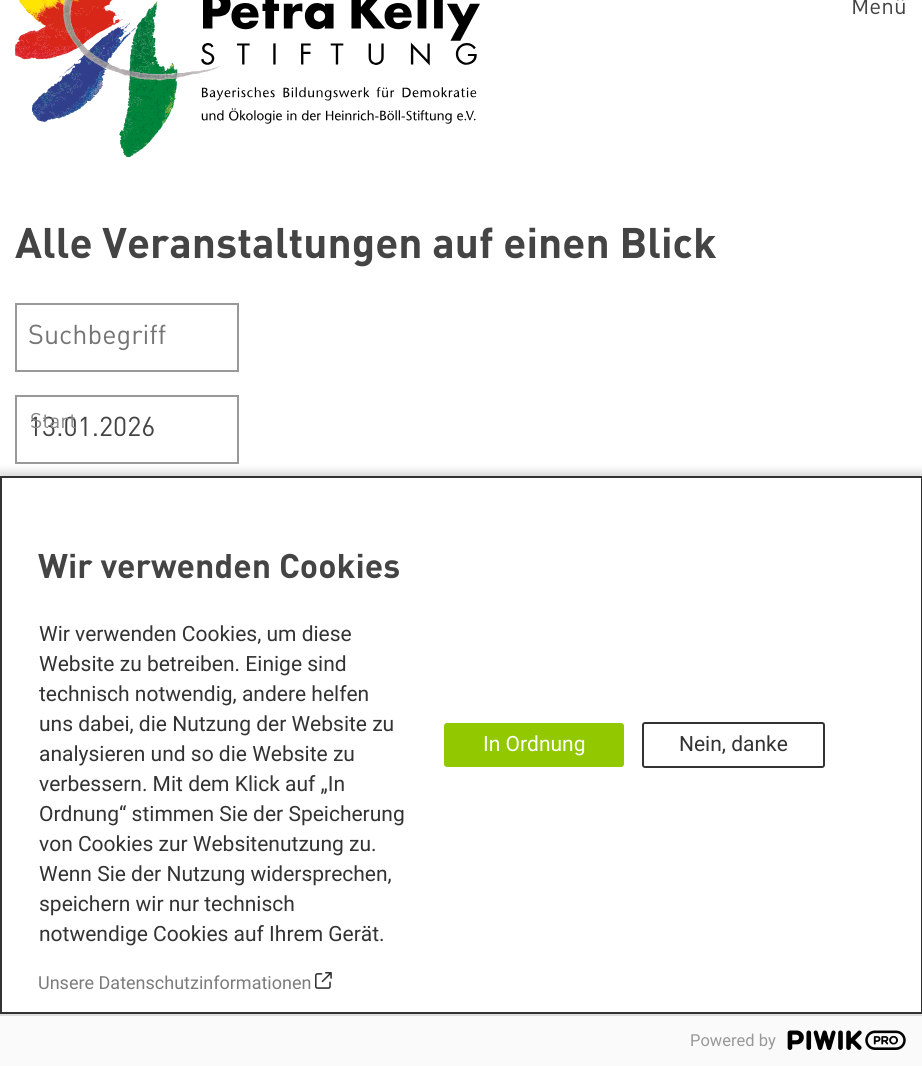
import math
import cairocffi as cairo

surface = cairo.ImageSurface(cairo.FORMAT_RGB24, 922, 1066)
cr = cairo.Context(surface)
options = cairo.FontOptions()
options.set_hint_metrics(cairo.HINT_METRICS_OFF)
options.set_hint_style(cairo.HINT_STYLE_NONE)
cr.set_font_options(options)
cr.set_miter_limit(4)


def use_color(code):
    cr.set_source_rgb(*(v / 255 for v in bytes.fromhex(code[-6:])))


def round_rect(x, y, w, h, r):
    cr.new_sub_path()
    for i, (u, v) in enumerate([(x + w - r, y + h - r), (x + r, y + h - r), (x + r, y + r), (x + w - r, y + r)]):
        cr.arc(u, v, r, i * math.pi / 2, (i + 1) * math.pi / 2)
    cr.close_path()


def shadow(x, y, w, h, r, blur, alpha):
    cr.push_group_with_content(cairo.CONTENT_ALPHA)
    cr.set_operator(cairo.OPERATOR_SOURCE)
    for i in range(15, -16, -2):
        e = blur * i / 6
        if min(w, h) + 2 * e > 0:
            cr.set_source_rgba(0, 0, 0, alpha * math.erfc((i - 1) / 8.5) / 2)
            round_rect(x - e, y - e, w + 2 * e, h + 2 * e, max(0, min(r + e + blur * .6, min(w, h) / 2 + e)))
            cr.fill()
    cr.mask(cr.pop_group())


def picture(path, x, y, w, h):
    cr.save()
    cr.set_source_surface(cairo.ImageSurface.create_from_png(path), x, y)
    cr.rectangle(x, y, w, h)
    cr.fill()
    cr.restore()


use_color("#ffffff")
cr.paint()
picture("img1.png", 15, 0, 465, 157)
cr.select_font_face("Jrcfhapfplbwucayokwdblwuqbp")
cr.set_font_size(22.5)
use_color("#444444")
cr.move_to(851, 14)
cr.show_text("Menü")
cr.select_font_face("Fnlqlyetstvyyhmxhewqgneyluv", cairo.FONT_SLANT_NORMAL, cairo.FONT_WEIGHT_BOLD)
cr.set_font_size(42.25)
cr.move_to(15, 258)
cr.show_text("Alle Veranstaltungen auf einen Blick")
cr.rectangle(16, 304, 222, 67)
use_color("#999999")
cr.stroke()
cr.select_font_face("Jrcfhapfplbwucayokwdblwuqbp")
cr.set_font_size(27)
use_color("#757575")
cr.move_to(28, 344)
cr.show_text("Suchbegriff")
cr.rectangle(16, 396, 222, 67)
use_color("#999999")
cr.stroke()
use_color("#444444")
cr.move_to(28, 436)
cr.show_text("13.01.2026")
cr.set_font_size(21)
use_color("#888888")
cr.move_to(30, 428)
cr.show_text("Start")
use_color("#000000")
shadow(-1, 471, 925, 594, 0, 4, 0.14)
use_color("#ffffff")
cr.rectangle(1, 477, 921, 536)
cr.fill_preserve()
use_color("#333333")
cr.stroke()
cr.select_font_face("Fnlqlyetstvyyhmxhewqgneyluv", cairo.FONT_SLANT_NORMAL, cairo.FONT_WEIGHT_BOLD)
cr.set_font_size(33.75)
use_color("#444444")
cr.move_to(38, 578)
cr.show_text("Wir verwenden Cookies")
cr.select_font_face("Roboto")
cr.set_font_size(21)
use_color("#333333")
cr.move_to(39, 641)
cr.show_text("Wir verwenden Cookies, um diese")
cr.move_to(39, 671)
cr.show_text("Website zu betreiben. Einige sind")
cr.move_to(39, 701)
cr.show_text("technisch notwendig, andere helfen")
cr.move_to(39, 731)
cr.show_text("uns dabei, die Nutzung der Website zu")
cr.move_to(39, 761)
cr.show_text("analysieren und so die Website zu")
cr.move_to(39, 791)
cr.show_text("verbessern. Mit dem Klick auf „In")
cr.move_to(39, 821)
cr.show_text("Ordnung“ stimmen Sie der Speicherung")
cr.move_to(39, 851)
cr.show_text("von Cookies zur Websitenutzung zu.")
cr.move_to(39, 881)
cr.show_text("Wenn Sie der Nutzung widersprechen,")
cr.move_to(39, 911)
cr.show_text("speichern wir nur technisch")
cr.move_to(39, 941)
cr.show_text("notwendige Cookies auf Ihrem Gerät.")
cr.set_font_size(18)
use_color("#7c7c7c")
cr.move_to(38, 989)
cr.show_text("Unsere Datenschutzinformationen")
picture("img2.png", 315, 972, 17, 17)
use_color("#91c800")
round_rect(444, 723, 180, 44, 3)
cr.fill()
cr.set_font_size(21)
use_color("#ffffff")
cr.move_to(483, 751)
cr.show_text("In Ordnung")
round_rect(643, 723, 181, 44, 2)
use_color("#333333")
cr.stroke()
cr.move_to(679, 751)
cr.show_text("Nein, danke")
use_color("#fafafa")
cr.rectangle(0, 1016, 922, 50)
cr.fill()
use_color("#dddddd")
cr.rectangle(0, 1014, 922, 2)
cr.fill()
cr.set_font_size(16.5)
use_color("#999999")
cr.move_to(690, 1046)
cr.show_text("Powered by")
picture("img3.png", 787, 1030, 119, 20)
surface.write_to_png("result.png")
